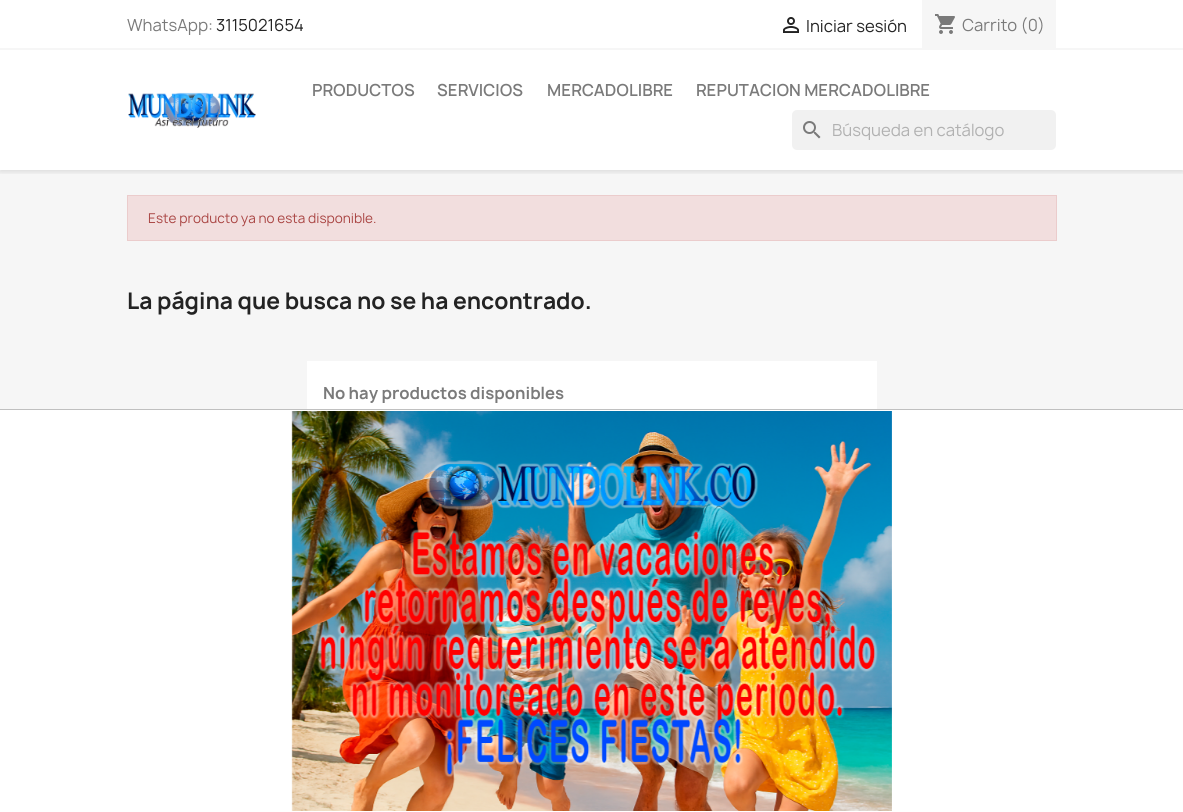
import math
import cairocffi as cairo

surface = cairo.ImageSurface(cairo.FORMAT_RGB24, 1183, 812)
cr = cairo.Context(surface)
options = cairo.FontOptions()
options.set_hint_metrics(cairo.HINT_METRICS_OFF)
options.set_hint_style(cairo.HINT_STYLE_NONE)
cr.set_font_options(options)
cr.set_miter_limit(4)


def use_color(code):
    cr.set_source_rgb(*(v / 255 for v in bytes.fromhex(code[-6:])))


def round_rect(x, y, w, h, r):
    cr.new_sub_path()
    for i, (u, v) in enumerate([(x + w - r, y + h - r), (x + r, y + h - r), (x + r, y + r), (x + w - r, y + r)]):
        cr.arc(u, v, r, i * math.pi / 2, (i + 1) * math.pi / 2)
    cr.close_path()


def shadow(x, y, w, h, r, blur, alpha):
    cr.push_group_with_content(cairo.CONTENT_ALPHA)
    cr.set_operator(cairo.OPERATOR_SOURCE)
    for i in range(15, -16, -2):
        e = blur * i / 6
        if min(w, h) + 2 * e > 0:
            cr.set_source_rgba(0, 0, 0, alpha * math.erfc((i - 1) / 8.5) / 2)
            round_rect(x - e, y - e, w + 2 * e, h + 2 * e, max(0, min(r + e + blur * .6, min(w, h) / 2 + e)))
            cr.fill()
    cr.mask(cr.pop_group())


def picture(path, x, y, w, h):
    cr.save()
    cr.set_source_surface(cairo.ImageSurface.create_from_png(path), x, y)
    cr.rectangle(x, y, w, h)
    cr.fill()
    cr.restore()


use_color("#ffffff")
cr.paint()
use_color("#f6f6f6")
cr.rectangle(0, 170, 1183, 239)
cr.fill()
cr.save()
cr.rectangle(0, 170, 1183, 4)
cr.clip()
use_color("#000000")
shadow(0, 2, 1183, 170, 0, 2.5, 0.11)
cr.restore()
cr.rectangle(0, 48, 1183, 2)
cr.fill()
cr.select_font_face("Manrope")
cr.set_font_size(16)
use_color("#7a7a7a")
cr.move_to(127, 31)
cr.show_text("WhatsApp:")
use_color("#232323")
cr.move_to(216, 31)
cr.show_text("3115021654")
picture("img1.png", 783, 17, 16, 16)
cr.move_to(806, 32)
cr.show_text("Iniciar sesión")
use_color("#f6f6f6")
cr.rectangle(922, 0, 134, 48)
cr.fill()
picture("img2.png", 935, 14, 20, 20)
use_color("#7a7a7a")
cr.move_to(962, 31)
cr.show_text("Carrito (0)")
picture("img3.png", 128, 92, 128, 36)
cr.select_font_face("Manrope SemiBold")
cr.move_to(312, 96)
cr.show_text("PRODUCTOS")
cr.move_to(437, 96)
cr.show_text("SERVICIOS")
cr.move_to(547, 96)
cr.show_text("MERCADOLIBRE")
cr.move_to(696, 96)
cr.show_text("REPUTACION MERCADOLIBRE")
use_color("#f1f1f1")
round_rect(792, 110, 264, 40, 5)
cr.fill()
picture("img4.png", 803, 121, 18, 18)
cr.select_font_face("Manrope")
use_color("#b1b1b1")
cr.move_to(832, 136)
cr.show_text("Búsqueda en catálogo")
use_color("#f2dede")
cr.rectangle(127.5, 195.5, 929, 45)
cr.fill_preserve()
use_color("#ebcccc")
cr.set_line_width(1)
cr.stroke()
cr.set_font_size(13)
use_color("#a94442")
cr.move_to(148, 223)
cr.show_text("Este producto ya no esta disponible.")
cr.select_font_face("Manrope", cairo.FONT_SLANT_NORMAL, cairo.FONT_WEIGHT_BOLD)
cr.set_font_size(22)
use_color("#232323")
cr.move_to(127, 309)
cr.show_text("La página que busca no se ha encontrado.")
use_color("#ffffff")
cr.rectangle(307, 361, 570, 48)
cr.fill()
cr.set_font_size(16)
use_color("#7a7a7a")
cr.move_to(323, 399)
cr.show_text("No hay productos disponibles")
use_color("#c0c0c0")
cr.rectangle(0, 409, 1183, 1)
cr.fill()
picture("img5.png", 291, 411, 601, 400)
surface.write_to_png("result.png")
